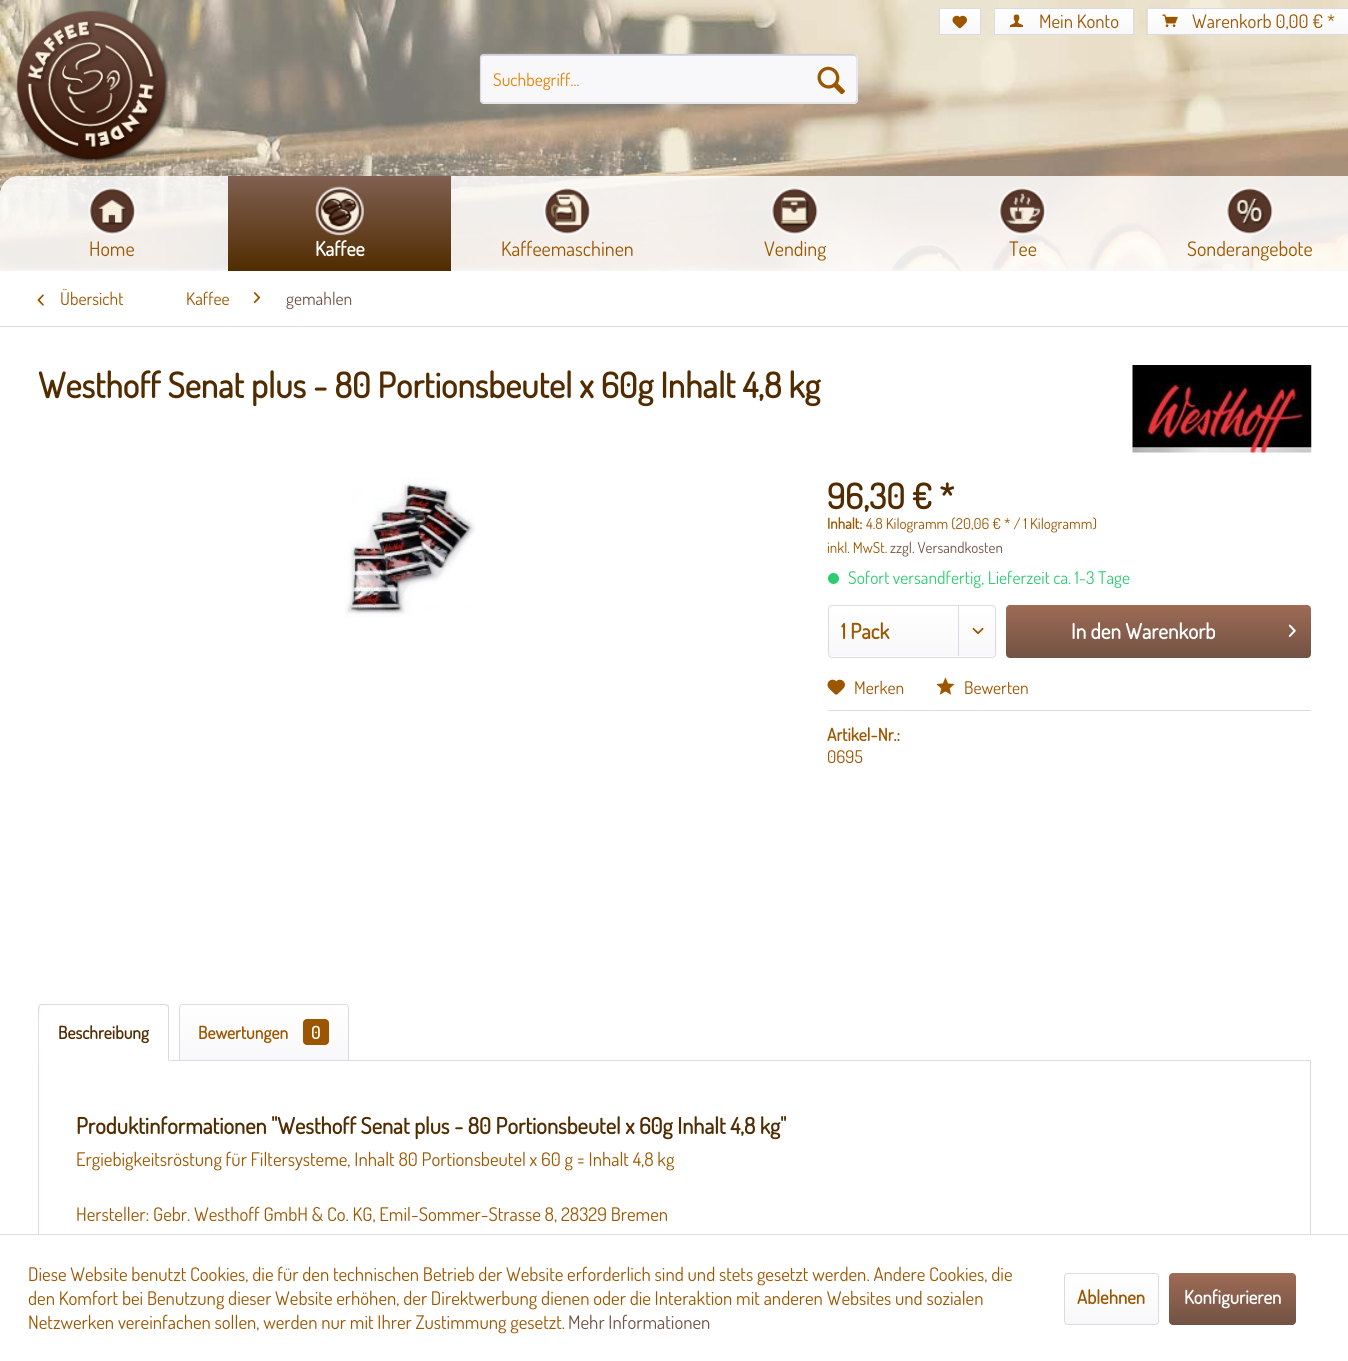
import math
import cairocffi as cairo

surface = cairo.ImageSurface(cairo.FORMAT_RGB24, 1348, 1361)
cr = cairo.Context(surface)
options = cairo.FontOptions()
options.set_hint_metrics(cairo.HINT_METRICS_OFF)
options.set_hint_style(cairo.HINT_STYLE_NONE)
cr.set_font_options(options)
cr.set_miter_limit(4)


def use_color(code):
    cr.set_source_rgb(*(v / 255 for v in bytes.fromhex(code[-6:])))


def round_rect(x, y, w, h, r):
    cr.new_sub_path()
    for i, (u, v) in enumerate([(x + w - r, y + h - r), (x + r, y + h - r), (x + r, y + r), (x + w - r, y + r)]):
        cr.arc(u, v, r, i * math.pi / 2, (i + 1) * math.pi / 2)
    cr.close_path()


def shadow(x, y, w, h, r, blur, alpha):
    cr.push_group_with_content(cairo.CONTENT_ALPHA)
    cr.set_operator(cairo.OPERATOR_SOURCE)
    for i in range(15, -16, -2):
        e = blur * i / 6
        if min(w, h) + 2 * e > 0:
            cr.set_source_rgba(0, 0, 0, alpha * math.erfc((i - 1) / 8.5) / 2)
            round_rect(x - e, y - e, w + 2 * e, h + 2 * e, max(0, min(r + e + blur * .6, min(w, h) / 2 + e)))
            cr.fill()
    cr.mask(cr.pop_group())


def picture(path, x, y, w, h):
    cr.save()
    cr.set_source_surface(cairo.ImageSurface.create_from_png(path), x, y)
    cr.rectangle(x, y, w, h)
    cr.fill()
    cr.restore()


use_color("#ffffff")
cr.paint()
picture("img1.png", 0, 0, 1348, 271)
gradient = cairo.LinearGradient(960, 9, 960, 34)
gradient.add_color_stop_rgba(0, 1, 1, 1, 1)
gradient.add_color_stop_rgba(1, 0.973, 0.973, 0.98, 1)
cr.set_source(gradient)
cr.rectangle(940, 9, 40, 25)
cr.fill()
cr.rectangle(939.5, 8.5, 41, 26)
use_color("#dadae5")
cr.set_line_width(1)
cr.stroke()
picture("img2.png", 952, 15, 15, 14)
gradient = cairo.LinearGradient(1064, 9, 1064, 34)
gradient.add_color_stop_rgba(0, 1, 1, 1, 1)
gradient.add_color_stop_rgba(1, 0.973, 0.973, 0.98, 1)
cr.set_source(gradient)
cr.rectangle(995, 9, 138, 25)
cr.fill()
cr.rectangle(994.5, 8.5, 139, 26)
use_color("#dadae5")
cr.stroke()
picture("img3.png", 1010, 14, 14, 13)
cr.select_font_face("Dosis")
cr.set_font_size(18.75)
use_color("#9d5600")
cr.move_to(1039, 28)
cr.show_text("Mein Konto")
gradient = cairo.LinearGradient(1248, 9, 1248, 34)
gradient.add_color_stop_rgba(0, 1, 1, 1, 1)
gradient.add_color_stop_rgba(1, 0.973, 0.973, 0.98, 1)
cr.set_source(gradient)
cr.rectangle(1148, 9, 200, 25)
cr.fill()
cr.rectangle(1146.5, 8.5, 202, 26)
use_color("#dadae5")
cr.stroke()
picture("img4.png", 1162, 14, 16, 13)
use_color("#9d5600")
cr.move_to(1192, 28)
cr.show_text("Warenkorb 0,00 € *")
picture("img5.png", 16, 10, 154, 154)
use_color("#f8f8fa")
round_rect(480, 54, 378, 50, 4)
cr.fill()
use_color("#dadae5")
cr.new_path()
cr.move_to(484, 56)
cr.line_to(854, 56)
cr.curve_to(855, 56, 856, 57, 856, 59)
cr.line_to(856, 56)
cr.line_to(854, 55)
cr.line_to(484, 55)
cr.curve_to(481, 55, 481, 57, 481, 59)
cr.curve_to(481, 57, 482, 56, 484, 56)
cr.close_path()
cr.fill()
cr.new_path()
cr.move_to(481.5, 55.5)
cr.line_to(484, 54.5)
cr.line_to(854, 54.5)
cr.line_to(856, 55.5)
use_color("#cbcbdb")
cr.set_line_width(1.2)
cr.stroke()
cr.new_path()
cr.move_to(856, 55.5)
cr.line_to(857, 57.5)
cr.line_to(857, 100)
cr.line_to(856, 102)
cr.line_to(854, 103)
cr.line_to(484, 103)
cr.line_to(481.5, 102)
cr.line_to(480.5, 100)
cr.line_to(480.5, 57.5)
cr.line_to(481.5, 55.5)
use_color("#dadae5")
cr.stroke()
cr.set_font_size(17.5)
use_color("#ea8000")
cr.move_to(493, 86)
cr.show_text("Suchbegriff...")
picture("img6.png", 817, 66, 28, 29)
use_color("#dadae5")
shadow(-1, 270, 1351, 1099, 0, 2.5, 1)
cr.set_source_rgba(1, 1, 1, 0.6)
cr.new_path()
cr.move_to(19, 176)
cr.line_to(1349, 176)
cr.line_to(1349, 271)
cr.line_to(0, 271)
cr.line_to(0, 195)
cr.curve_to(0, 184.5, 8.5, 176, 19, 176)
cr.close_path()
cr.fill()
cr.new_path()
cr.move_to(19, 176)
cr.line_to(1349, 176)
cr.line_to(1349, 271)
cr.line_to(0, 271)
cr.line_to(0, 195)
cr.curve_to(0, 184.5, 8.5, 176, 19, 176)
cr.close_path()
cr.fill()
picture("img7.png", 88, 187, 49, 48)
cr.set_font_size(20)
use_color("#9d5600")
cr.move_to(89, 256)
cr.show_text("Home")
gradient = cairo.LinearGradient(339, 176, 339, 271)
gradient.add_color_stop_rgba(0, 0.502, 0.376, 0.322, 1)
gradient.add_color_stop_rgba(1, 0.318, 0.173, 0, 1)
cr.set_source(gradient)
cr.rectangle(228, 176, 223, 95)
cr.fill()
picture("img8.png", 315, 186, 49, 50)
cr.select_font_face("Dosis", cairo.FONT_SLANT_NORMAL, cairo.FONT_WEIGHT_BOLD)
use_color("#ffffff")
cr.move_to(315, 256)
cr.show_text("Kaffee")
picture("img9.png", 543, 187, 49, 48)
cr.select_font_face("Dosis")
use_color("#9d5600")
cr.move_to(501, 256)
cr.show_text("Kaffeemaschinen")
picture("img10.png", 770, 187, 49, 48)
cr.move_to(764, 256)
cr.show_text("Vending")
picture("img11.png", 998, 187, 49, 48)
cr.move_to(1009, 256)
cr.show_text("Tee")
picture("img12.png", 1226, 187, 48, 48)
cr.move_to(1187, 256)
cr.show_text("Sonderangebote")
use_color("#ffffff")
cr.rectangle(0, 271, 1348, 963)
cr.fill()
use_color("#dadae5")
cr.rectangle(0, 326, 1348, 1)
cr.fill()
picture("img13.png", 37, 294, 7, 12)
cr.set_font_size(17.5)
use_color("#9d5600")
cr.move_to(60, 305)
cr.show_text("Übersicht")
cr.move_to(186, 305)
cr.show_text("Kaffee")
picture("img14.png", 253, 292, 8, 12)
use_color("#725244")
cr.move_to(286, 305)
cr.show_text("gemahlen")
cr.select_font_face("Dosis", cairo.FONT_SLANT_NORMAL, cairo.FONT_WEIGHT_BOLD)
cr.set_font_size(35)
use_color("#512c00")
cr.move_to(38, 398)
cr.show_text("Westhoff Senat plus - 80 Portionsbeutel x 60g Inhalt 4,8 kg")
picture("img15.png", 1132, 365, 180, 88)
picture("img16.png", 345, 477, 130, 141)
cr.move_to(827, 509)
cr.show_text("96,30 € *")
cr.set_font_size(15)
use_color("#9d5600")
cr.move_to(827, 529)
cr.show_text("Inhalt:")
cr.select_font_face("Dosis")
cr.move_to(866, 529)
cr.show_text("4.8 Kilogramm (20,06 € * / 1 Kilogramm)")
cr.move_to(827, 553)
cr.show_text("inkl. MwSt.")
use_color("#725244")
cr.move_to(890, 553)
cr.show_text("zzgl. Versandkosten")
use_color("#2ecc71")
cr.new_path()
cr.arc(833.5, 578.5, 5.5, 0, 2 * math.pi)
cr.fill()
cr.set_font_size(17.5)
cr.move_to(848, 584)
cr.show_text("Sofort versandfertig, Lieferzeit ca. 1-3 Tage")
gradient = cairo.LinearGradient(912, 606, 912, 656)
gradient.add_color_stop_rgba(0, 1, 1, 1, 1)
gradient.add_color_stop_rgba(1, 0.973, 0.973, 0.98, 1)
cr.set_source(gradient)
round_rect(829, 606, 166, 50, 2.5)
cr.fill()
round_rect(828.5, 605.5, 167, 52, 3.5)
use_color("#dadae5")
cr.set_line_width(1)
cr.stroke()
cr.select_font_face("Dosis", cairo.FONT_SLANT_NORMAL, cairo.FONT_WEIGHT_BOLD)
cr.set_font_size(21.25)
use_color("#9d5600")
cr.move_to(841, 639)
cr.show_text("1 Pack")
use_color("#dadae5")
cr.rectangle(958, 606, 1, 50)
cr.fill()
picture("img17.png", 972, 627, 12, 8)
gradient = cairo.LinearGradient(1159, 605, 1159, 658)
gradient.add_color_stop_rgba(0, 0.62, 0.42, 0.333, 1)
gradient.add_color_stop_rgba(1, 0.447, 0.322, 0.267, 1)
cr.set_source(gradient)
round_rect(1006, 605, 305, 53, 4)
cr.fill()
use_color("#ffffff")
cr.move_to(1071, 639)
cr.show_text("In den Warenkorb")
picture("img18.png", 1288, 624, 8, 13)
use_color("#dadae5")
cr.rectangle(828, 710, 483, 1)
cr.fill()
picture("img19.png", 827, 679, 18, 16)
cr.select_font_face("Dosis")
cr.set_font_size(17.5)
use_color("#9d5600")
cr.move_to(854, 694)
cr.show_text("Merken")
picture("img20.png", 936, 677, 19, 18)
cr.move_to(964, 694)
cr.show_text("Bewerten")
cr.select_font_face("Dosis", cairo.FONT_SLANT_NORMAL, cairo.FONT_WEIGHT_BOLD)
cr.move_to(827, 741)
cr.show_text("Artikel-Nr.:")
cr.select_font_face("Dosis")
cr.move_to(827, 763)
cr.show_text("0695")
cr.rectangle(38.5, 1060.5, 1272, 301)
use_color("#dadae5")
cr.stroke()
use_color("#ffffff")
cr.new_path()
cr.move_to(42, 1004)
cr.line_to(165, 1004)
cr.curve_to(167, 1004, 169, 1006, 169, 1008)
cr.line_to(169, 1061)
cr.line_to(38, 1061)
cr.line_to(38, 1008)
cr.curve_to(38, 1006, 40, 1004, 42, 1004)
cr.close_path()
cr.fill()
use_color("#dadae5")
cr.new_path()
cr.move_to(41, 1004)
cr.line_to(39, 1005)
cr.line_to(40, 1006)
cr.line_to(41, 1005)
cr.line_to(165, 1005)
cr.line_to(167, 1006)
cr.line_to(168, 1005)
cr.line_to(165, 1004)
cr.close_path()
cr.fill()
cr.new_path()
cr.move_to(168, 1005)
cr.line_to(169, 1006)
cr.line_to(169, 1061)
cr.line_to(168, 1060)
cr.line_to(168, 1008)
cr.line_to(167, 1006)
cr.close_path()
cr.fill()
cr.new_path()
cr.move_to(39, 1005)
cr.line_to(38, 1008)
cr.line_to(38, 1061)
cr.line_to(39, 1060)
cr.curve_to(39, 1053, 38, 1008, 40, 1006)
cr.close_path()
cr.fill()
cr.select_font_face("Dosis", cairo.FONT_SLANT_NORMAL, cairo.FONT_WEIGHT_BOLD)
use_color("#512c00")
cr.move_to(58, 1039)
cr.show_text("Beschreibung")
gradient = cairo.LinearGradient(264, 1005, 264, 1060)
gradient.add_color_stop_rgba(0, 1, 1, 1, 1)
gradient.add_color_stop_rgba(1, 0.973, 0.973, 0.98, 1)
cr.set_source(gradient)
cr.new_path()
cr.move_to(182.5, 1005)
cr.line_to(345.5, 1005)
cr.curve_to(347, 1005, 348, 1006, 348, 1007.5)
cr.line_to(348, 1060)
cr.line_to(180, 1060)
cr.line_to(180, 1007.5)
cr.curve_to(180, 1006, 181, 1005, 182.5, 1005)
cr.close_path()
cr.fill()
cr.new_path()
cr.move_to(183, 1004.5)
cr.line_to(345, 1004.5)
cr.curve_to(347, 1004.5, 348.5, 1006, 348.5, 1008)
cr.line_to(348.5, 1060.5)
cr.line_to(179.5, 1060.5)
cr.line_to(179.5, 1008)
cr.curve_to(179.5, 1006, 181, 1004.5, 183, 1004.5)
cr.close_path()
use_color("#dadae5")
cr.stroke()
use_color("#9d5600")
cr.move_to(198, 1039)
cr.show_text("Bewertungen")
round_rect(303, 1019, 26, 26, 4)
cr.fill()
use_color("#ffffff")
cr.move_to(311, 1039)
cr.show_text("0")
cr.set_font_size(22.5)
use_color("#512c00")
cr.move_to(76, 1134)
cr.show_text("Produktinformationen \"Westhoff Senat plus - 80 Portionsbeutel x 60g Inhalt 4,8 kg\"")
cr.select_font_face("Dosis")
cr.set_font_size(18.75)
use_color("#9d5600")
cr.move_to(76, 1166)
cr.show_text("Ergiebigkeitsröstung für Filtersysteme, Inhalt 80 Portionsbeutel x 60 g = Inhalt 4,8 kg")
cr.move_to(76, 1221)
cr.show_text("Hersteller: Gebr. Westhoff GmbH & Co. KG, Emil-Sommer-Strasse 8, 28329 Bremen")
use_color("#ffffff")
cr.rectangle(0, 1235, 1348, 126)
cr.fill()
use_color("#dadae5")
cr.rectangle(0, 1234, 1348, 1)
cr.fill()
use_color("#9d5600")
cr.move_to(28, 1281)
cr.show_text("Diese Website benutzt Cookies, die für den technischen Betrieb der Website erforderlich sind und stets gesetzt werden. Andere Cookies, die")
cr.move_to(28, 1305)
cr.show_text("den Komfort bei Benutzung dieser Website erhöhen, der Direktwerbung dienen oder die Interaktion mit anderen Websites und sozialen")
cr.move_to(28, 1329)
cr.show_text("Netzwerken vereinfachen sollen, werden nur mit Ihrer Zustimmung gesetzt.")
use_color("#725244")
cr.move_to(568, 1329)
cr.show_text("Mehr Informationen")
gradient = cairo.LinearGradient(1111, 1274, 1111, 1324)
gradient.add_color_stop_rgba(0, 1, 1, 1, 1)
gradient.add_color_stop_rgba(1, 0.973, 0.973, 0.98, 1)
cr.set_source(gradient)
round_rect(1065, 1274, 93, 50, 2.5)
cr.fill()
round_rect(1064.5, 1273.5, 94, 51, 3.5)
use_color("#dadae5")
cr.stroke()
cr.select_font_face("Dosis", cairo.FONT_SLANT_NORMAL, cairo.FONT_WEIGHT_BOLD)
use_color("#9d5600")
cr.move_to(1077, 1304)
cr.show_text("Ablehnen")
gradient = cairo.LinearGradient(1233, 1273, 1233, 1325)
gradient.add_color_stop_rgba(0, 0.62, 0.42, 0.333, 1)
gradient.add_color_stop_rgba(1, 0.447, 0.322, 0.267, 1)
cr.set_source(gradient)
round_rect(1169, 1273, 127, 52, 4)
cr.fill()
use_color("#ffffff")
cr.move_to(1184, 1304)
cr.show_text("Konfigurieren")
surface.write_to_png("result.png")
